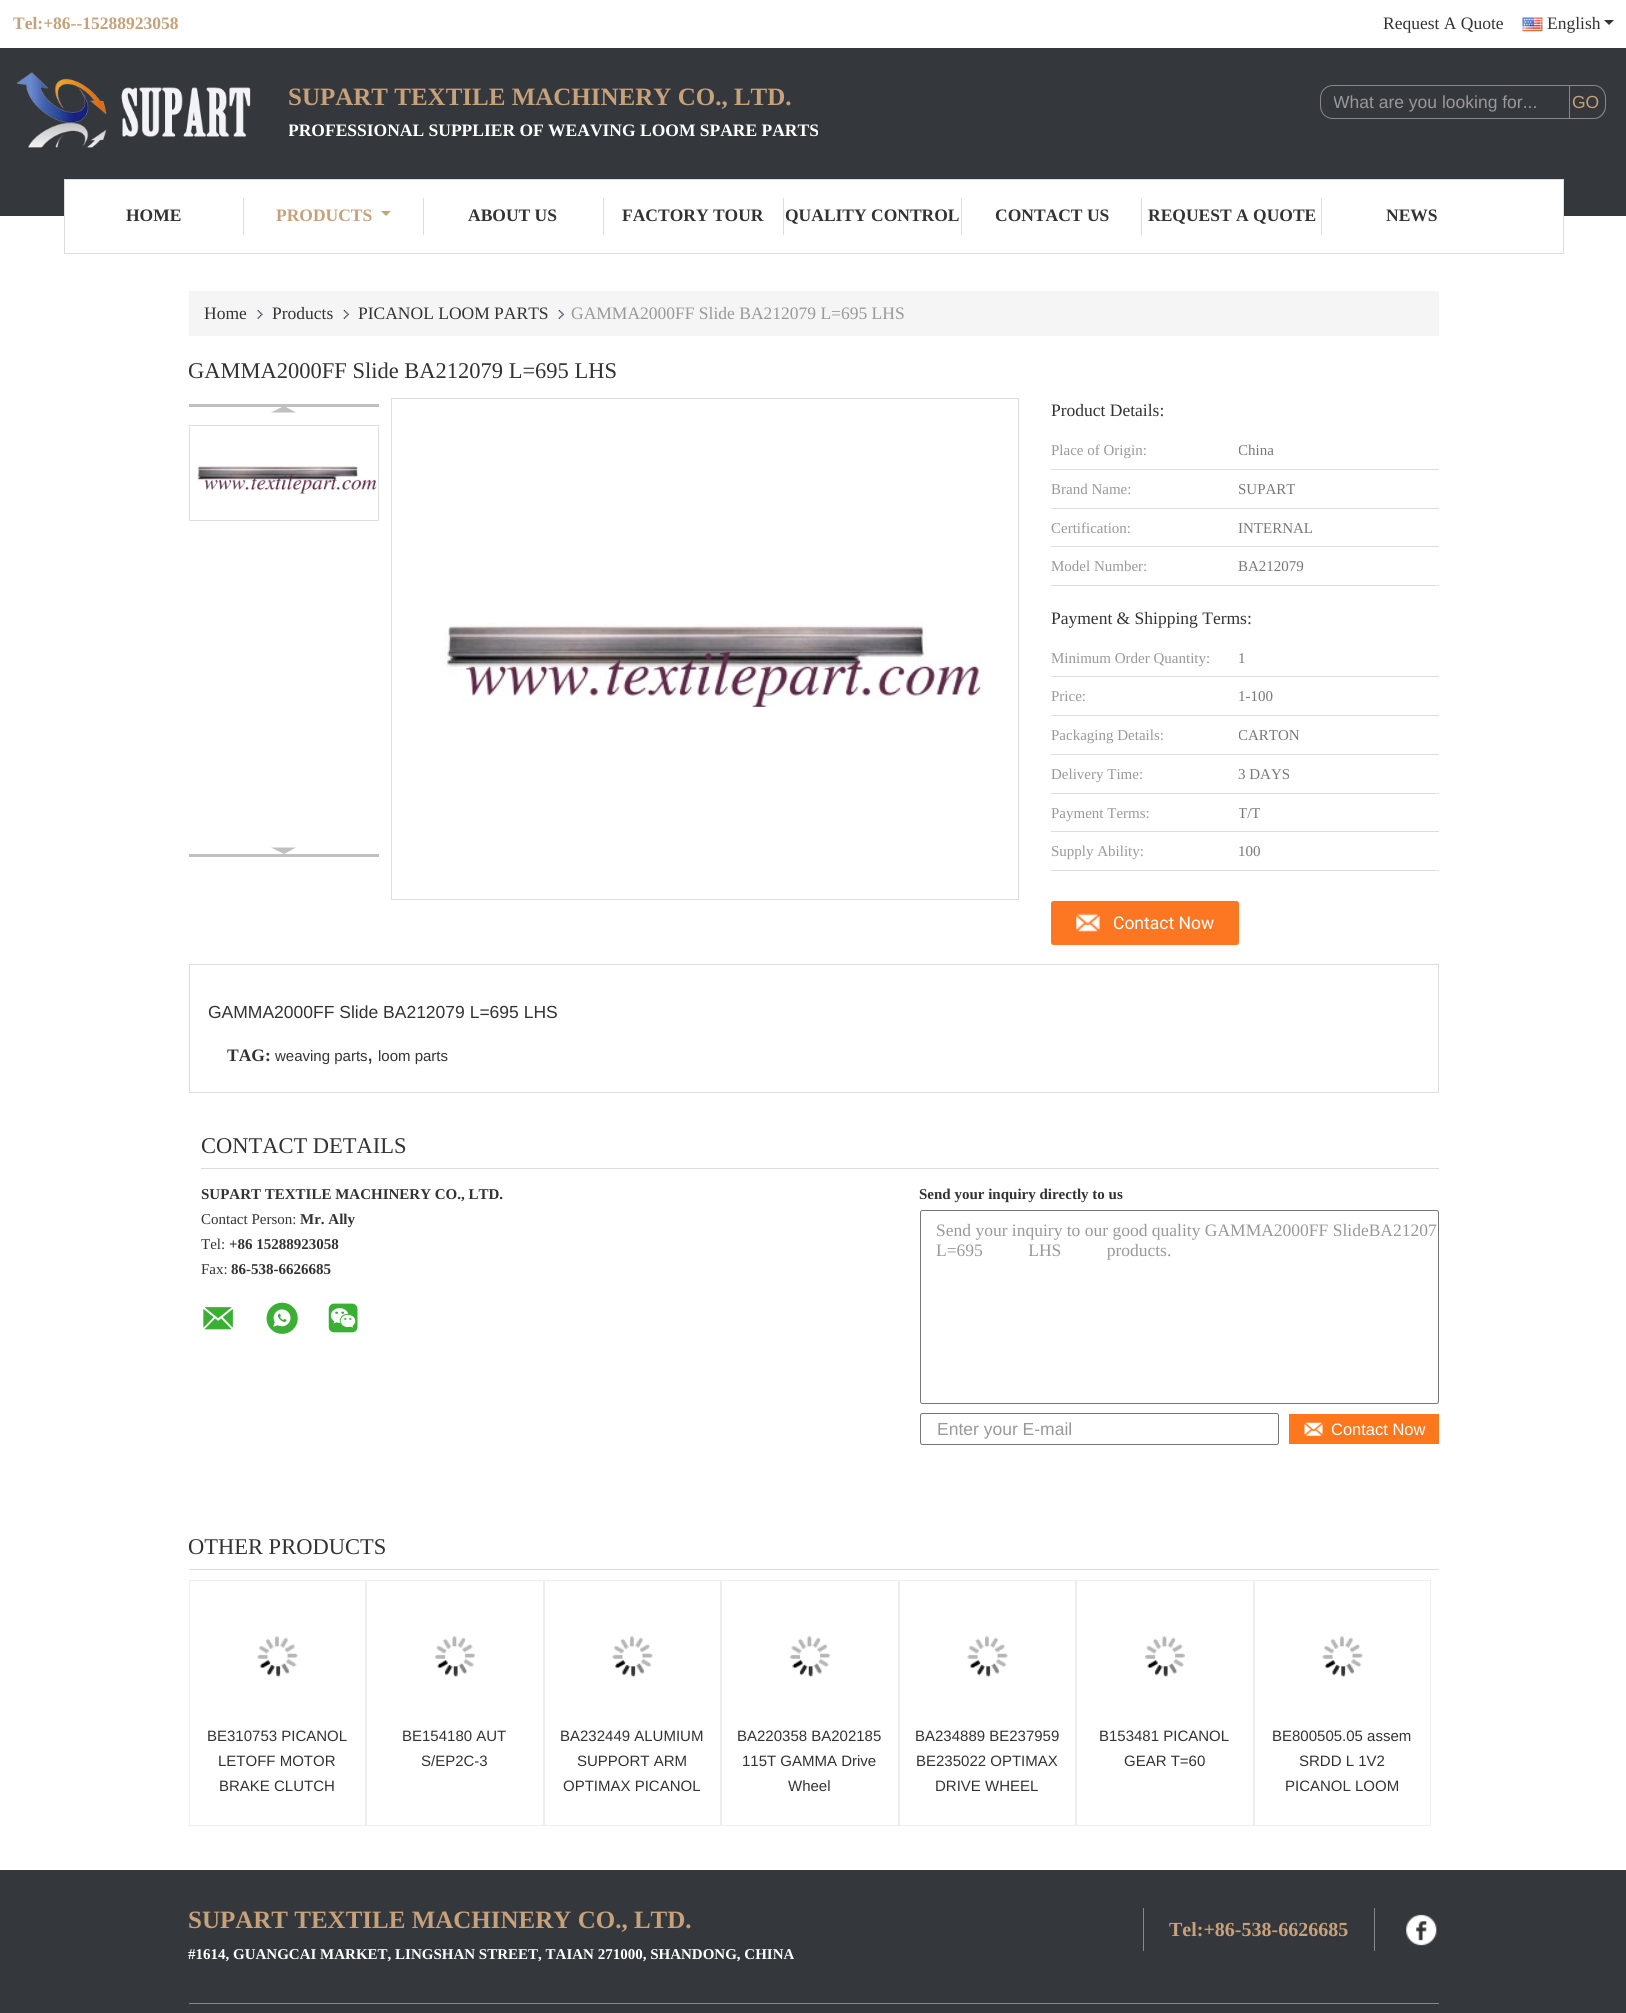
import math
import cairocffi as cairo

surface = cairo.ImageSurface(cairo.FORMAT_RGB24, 1626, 2013)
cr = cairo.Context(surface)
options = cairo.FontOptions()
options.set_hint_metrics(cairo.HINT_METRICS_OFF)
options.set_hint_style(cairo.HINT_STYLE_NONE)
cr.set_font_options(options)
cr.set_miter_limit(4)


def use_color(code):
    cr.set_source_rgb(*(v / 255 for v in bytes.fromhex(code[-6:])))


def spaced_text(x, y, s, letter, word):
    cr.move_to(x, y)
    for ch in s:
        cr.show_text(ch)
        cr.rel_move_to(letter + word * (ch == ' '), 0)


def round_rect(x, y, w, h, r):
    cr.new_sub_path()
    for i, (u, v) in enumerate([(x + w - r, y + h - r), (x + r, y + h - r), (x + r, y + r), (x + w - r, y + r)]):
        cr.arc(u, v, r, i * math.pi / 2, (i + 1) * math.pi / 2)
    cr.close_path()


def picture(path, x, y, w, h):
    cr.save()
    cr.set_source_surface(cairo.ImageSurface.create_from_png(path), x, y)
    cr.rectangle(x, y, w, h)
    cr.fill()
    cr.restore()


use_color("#ffffff")
cr.paint()
cr.select_font_face("Liberation Serif", cairo.FONT_SLANT_NORMAL, cairo.FONT_WEIGHT_BOLD)
cr.set_font_size(17.5)
use_color("#c6a179")
cr.move_to(13, 29)
cr.show_text("Tel:+86--15288923058")
cr.select_font_face("Liberation Serif")
use_color("#333333")
cr.move_to(1383, 29)
cr.show_text("Request A Quote")
picture("img1.png", 1522, 17, 21, 15)
cr.move_to(1547, 29)
cr.show_text("English")
cr.new_path()
cr.move_to(1604, 20)
cr.line_to(1614, 20)
cr.line_to(1609, 25)
cr.close_path()
cr.fill()
use_color("#34373c")
cr.rectangle(0, 48, 1626, 168)
cr.fill()
picture("img2.png", 16, 72, 235, 76)
cr.select_font_face("Liberation Serif", cairo.FONT_SLANT_NORMAL, cairo.FONT_WEIGHT_BOLD)
cr.set_font_size(25)
use_color("#c6a179")
cr.move_to(288, 105)
cr.show_text("SUPART TEXTILE MACHINERY CO., LTD.")
cr.save()
cr.rectangle(289, 85, 887, 58)
cr.clip()
cr.set_font_size(17.5)
use_color("#ffffff")
cr.move_to(288, 136)
cr.show_text("PROFESSIONAL SUPPLIER OF WEAVING LOOM SPARE PARTS")
cr.restore()
cr.new_path()
cr.move_to(1333, 85.5)
cr.line_to(1569.5, 85.5)
cr.line_to(1569.5, 118.5)
cr.line_to(1333, 118.5)
cr.curve_to(1326, 118.5, 1320.5, 113, 1320.5, 106)
cr.line_to(1320.5, 98)
cr.curve_to(1320.5, 91, 1326, 85.5, 1333, 85.5)
cr.close_path()
use_color("#888888")
cr.set_line_width(1)
cr.stroke()
cr.save()
cr.rectangle(1334, 93, 202, 20)
cr.clip()
cr.select_font_face("Liberation Sans")
cr.set_font_size(17.5)
use_color("#999999")
cr.move_to(1333, 108)
cr.show_text("What are you looking for...")
cr.restore()
cr.set_fill_rule(cairo.FILL_RULE_EVEN_ODD)
cr.new_path()
cr.move_to(1566, 85)
cr.line_to(1594, 85)
cr.curve_to(1601, 85, 1606, 91, 1606, 98)
cr.line_to(1606, 106)
cr.curve_to(1606, 113, 1601, 119, 1594, 119)
cr.line_to(1566, 119)
cr.close_path()
cr.move_to(1566, 86)
cr.line_to(1594, 86)
cr.curve_to(1600, 86, 1605, 91, 1605, 98)
cr.line_to(1605, 106)
cr.curve_to(1605, 112, 1600, 118, 1594, 118)
cr.line_to(1566, 118)
cr.close_path()
cr.fill()
cr.select_font_face("Liberation Sans")
cr.set_font_size(17.5)
use_color("#c6a179")
cr.move_to(1572, 108)
cr.show_text("GO")
use_color("#ffffff")
cr.rectangle(65, 180, 1498, 36)
cr.fill()
cr.rectangle(64.5, 179.5, 1499, 74)
use_color("#dddddd")
cr.stroke()
cr.rectangle(243, 198, 1, 37)
cr.fill()
cr.select_font_face("Liberation Serif", cairo.FONT_SLANT_NORMAL, cairo.FONT_WEIGHT_BOLD)
use_color("#333333")
cr.move_to(126, 221)
cr.show_text("HOME")
use_color("#dddddd")
cr.rectangle(423, 198, 1, 37)
cr.fill()
use_color("#c6a179")
cr.move_to(276, 221)
cr.show_text("PRODUCTS")
cr.set_fill_rule(cairo.FILL_RULE_WINDING)
cr.new_path()
cr.move_to(381, 211)
cr.line_to(391, 211)
cr.line_to(386, 216)
cr.close_path()
cr.fill()
use_color("#dddddd")
cr.rectangle(603, 198, 1, 37)
cr.fill()
use_color("#333333")
cr.move_to(468, 221)
cr.show_text("ABOUT US")
use_color("#dddddd")
cr.rectangle(783, 198, 1, 37)
cr.fill()
use_color("#333333")
cr.move_to(622, 221)
cr.show_text("FACTORY TOUR")
use_color("#dddddd")
cr.rectangle(961, 198, 1, 37)
cr.fill()
use_color("#333333")
cr.move_to(785, 221)
cr.show_text("QUALITY CONTROL")
use_color("#dddddd")
cr.rectangle(1141, 198, 1, 37)
cr.fill()
use_color("#333333")
cr.move_to(995, 221)
cr.show_text("CONTACT US")
use_color("#dddddd")
cr.rectangle(1321, 198, 1, 37)
cr.fill()
use_color("#333333")
cr.move_to(1148, 221)
cr.show_text("REQUEST A QUOTE")
cr.move_to(1386, 221)
cr.show_text("NEWS")
use_color("#f5f5f5")
cr.rectangle(189, 291, 1250, 45)
cr.fill()
cr.select_font_face("Liberation Serif")
use_color("#333333")
cr.move_to(204, 319)
cr.show_text("Home")
picture("img3.png", 257, 309, 6, 10)
cr.move_to(272, 319)
cr.show_text("Products")
picture("img4.png", 343, 309, 6, 10)
cr.move_to(358, 319)
cr.show_text("PICANOL LOOM PARTS")
picture("img4.png", 558, 309, 6, 10)
use_color("#999999")
cr.move_to(571, 319)
cr.show_text("GAMMA2000FF Slide BA212079 L=695 LHS")
cr.set_font_size(22.5)
use_color("#333333")
cr.move_to(188, 378)
cr.show_text("GAMMA2000FF Slide BA212079 L=695 LHS")
use_color("#c0c0c0")
cr.rectangle(189, 404, 190, 3)
cr.fill()
cr.new_path()
cr.move_to(296, 412.5)
cr.line_to(271, 412.5)
cr.line_to(284, 406)
cr.close_path()
cr.fill()
cr.rectangle(189.5, 425.5, 189, 95)
use_color("#dedede")
cr.stroke()
picture("img5.png", 197, 466, 180, 28)
use_color("#c0c0c0")
cr.rectangle(189, 854, 190, 3)
cr.fill()
cr.new_path()
cr.move_to(271, 847.5)
cr.line_to(296, 847.5)
cr.line_to(284, 854)
cr.close_path()
cr.fill()
cr.rectangle(391.5, 398.5, 627, 501)
use_color("#dedede")
cr.stroke()
picture("img6.png", 444, 623, 539, 85)
cr.set_font_size(17.5)
use_color("#333333")
cr.move_to(1051, 416)
cr.show_text("Product Details:")
use_color("#dedede")
cr.rectangle(1051, 469, 388, 1)
cr.fill()
cr.set_font_size(15)
use_color("#999999")
cr.move_to(1051, 455)
cr.show_text("Place of Origin:")
cr.save()
cr.rectangle(1239, 431, 200, 38)
cr.clip()
use_color("#787878")
cr.move_to(1238, 455)
cr.show_text("China")
cr.restore()
use_color("#dedede")
cr.rectangle(1051, 508, 388, 1)
cr.fill()
use_color("#999999")
cr.move_to(1051, 494)
cr.show_text("Brand Name:")
use_color("#787878")
cr.move_to(1238, 494)
cr.show_text("SUPART")
use_color("#dedede")
cr.rectangle(1051, 546, 388, 1)
cr.fill()
use_color("#999999")
cr.move_to(1051, 533)
cr.show_text("Certification:")
use_color("#787878")
cr.move_to(1238, 533)
cr.show_text("INTERNAL")
use_color("#dedede")
cr.rectangle(1051, 585, 388, 1)
cr.fill()
use_color("#999999")
cr.move_to(1051, 571)
cr.show_text("Model Number:")
use_color("#787878")
cr.move_to(1238, 571)
cr.show_text("BA212079")
cr.set_font_size(17.5)
use_color("#333333")
cr.move_to(1051, 624)
cr.show_text("Payment & Shipping Terms:")
use_color("#dedede")
cr.rectangle(1051, 676, 388, 1)
cr.fill()
cr.set_font_size(15)
use_color("#999999")
cr.move_to(1051, 663)
cr.show_text("Minimum Order Quantity:")
use_color("#787878")
cr.move_to(1238, 663)
cr.show_text("1")
use_color("#dedede")
cr.rectangle(1051, 715, 388, 1)
cr.fill()
use_color("#999999")
cr.move_to(1051, 701)
cr.show_text("Price:")
use_color("#787878")
cr.move_to(1238, 701)
cr.show_text("1-100")
use_color("#dedede")
cr.rectangle(1051, 754, 388, 1)
cr.fill()
use_color("#999999")
cr.move_to(1051, 740)
cr.show_text("Packaging Details:")
cr.save()
cr.rectangle(1239, 716, 200, 38)
cr.clip()
use_color("#787878")
cr.move_to(1238, 740)
cr.show_text("CARTON")
cr.restore()
use_color("#dedede")
cr.rectangle(1051, 793, 388, 1)
cr.fill()
use_color("#999999")
cr.move_to(1051, 779)
cr.show_text("Delivery Time:")
use_color("#787878")
cr.move_to(1238, 779)
cr.show_text("3 DAYS")
use_color("#dedede")
cr.rectangle(1051, 831, 388, 1)
cr.fill()
use_color("#999999")
cr.move_to(1051, 818)
cr.show_text("Payment Terms:")
cr.save()
cr.rectangle(1239, 794, 200, 37)
cr.clip()
use_color("#787878")
cr.move_to(1238, 818)
cr.show_text("T/T")
cr.restore()
use_color("#dedede")
cr.rectangle(1051, 870, 388, 1)
cr.fill()
use_color("#999999")
cr.move_to(1051, 856)
cr.show_text("Supply Ability:")
use_color("#787878")
cr.move_to(1238, 856)
cr.show_text("100")
use_color("#fd7722")
round_rect(1051, 901, 188, 44, 2.5)
cr.fill()
picture("img7.png", 1076, 913, 24, 19)
cr.select_font_face("Roboto")
cr.set_font_size(17.5)
use_color("#ffffff")
cr.move_to(1113, 929)
cr.show_text("Contact Now")
cr.rectangle(189.5, 964.5, 1249, 128)
use_color("#dddddd")
cr.stroke()
cr.select_font_face("Liberation Sans")
use_color("#333333")
cr.move_to(208, 1018)
cr.show_text("GAMMA2000FF Slide BA212079 L=695 LHS")
cr.select_font_face("Liberation Serif", cairo.FONT_SLANT_NORMAL, cairo.FONT_WEIGHT_BOLD)
cr.move_to(227, 1061)
cr.show_text("TAG:")
cr.select_font_face("Liberation Sans")
cr.set_font_size(15)
cr.move_to(275, 1061)
cr.show_text("weaving parts")
cr.set_font_size(22.5)
cr.move_to(367, 1061)
cr.show_text(",")
cr.set_font_size(15)
cr.move_to(378, 1061)
cr.show_text("loom parts")
use_color("#dddddd")
cr.rectangle(201, 1168, 1238, 1)
cr.fill()
cr.select_font_face("Liberation Serif")
cr.set_font_size(22.5)
use_color("#333333")
cr.move_to(201, 1153)
cr.show_text("CONTACT DETAILS")
cr.select_font_face("Liberation Serif", cairo.FONT_SLANT_NORMAL, cairo.FONT_WEIGHT_BOLD)
cr.set_font_size(15)
cr.move_to(201, 1199)
cr.show_text("SUPART TEXTILE MACHINERY CO., LTD.")
cr.select_font_face("Liberation Serif")
cr.move_to(201, 1224)
cr.show_text("Contact Person:")
cr.select_font_face("Liberation Serif", cairo.FONT_SLANT_NORMAL, cairo.FONT_WEIGHT_BOLD)
cr.move_to(300, 1224)
cr.show_text("Mr. Ally")
cr.select_font_face("Liberation Serif")
cr.move_to(201, 1249)
cr.show_text("Tel:")
cr.select_font_face("Liberation Serif", cairo.FONT_SLANT_NORMAL, cairo.FONT_WEIGHT_BOLD)
cr.move_to(229, 1249)
cr.show_text("+86 15288923058")
cr.select_font_face("Liberation Serif")
cr.move_to(201, 1274)
cr.show_text("Fax:")
cr.select_font_face("Liberation Serif", cairo.FONT_SLANT_NORMAL, cairo.FONT_WEIGHT_BOLD)
cr.move_to(231, 1274)
cr.show_text("86-538-6626685")
picture("img8.png", 203, 1307, 30, 23)
picture("img9.png", 266, 1302, 32, 32)
picture("img10.png", 328, 1303, 30, 30)
cr.move_to(919, 1199)
cr.show_text("Send your inquiry directly to us")
round_rect(920.5, 1210.5, 518, 193, 2)
use_color("#767676")
cr.stroke()
cr.select_font_face("Liberation Serif")
cr.set_font_size(17.5)
use_color("#999999")
cr.move_to(936, 1236)
cr.show_text("Send your inquiry to our good quality GAMMA2000FF SlideBA21207")
spaced_text(936, 1256, "L=695 LHS products.", 0, 41)
round_rect(920.5, 1413.5, 358, 31, 2)
use_color("#767676")
cr.stroke()
cr.select_font_face("Liberation Sans")
use_color("#999999")
cr.move_to(937, 1435)
cr.show_text("Enter your E-mail")
use_color("#ff771c")
cr.rectangle(1289, 1414, 150, 30)
cr.fill()
picture("img11.png", 1304, 1422, 19, 14)
cr.set_font_size(16.5)
use_color("#ffffff")
cr.move_to(1331, 1435)
cr.show_text("Contact Now")
use_color("#dddddd")
cr.rectangle(189, 1569, 1250, 1)
cr.fill()
cr.select_font_face("Liberation Serif")
cr.set_font_size(22.5)
use_color("#333333")
cr.move_to(188, 1554)
cr.show_text("OTHER PRODUCTS")
cr.rectangle(189.5, 1580.5, 176, 245)
use_color("#eeeeee")
cr.stroke()
picture("img12.png", 257, 1636, 41, 41)
cr.select_font_face("Liberation Sans")
cr.set_font_size(15)
use_color("#333333")
cr.move_to(207, 1741)
cr.show_text("BE310753 PICANOL")
cr.move_to(218, 1766)
cr.show_text("LETOFF MOTOR")
cr.move_to(219, 1791)
cr.show_text("BRAKE CLUTCH")
cr.rectangle(366.5, 1580.5, 177, 245)
use_color("#eeeeee")
cr.stroke()
picture("img13.png", 435, 1636, 40, 41)
use_color("#333333")
cr.move_to(402, 1741)
cr.show_text("BE154180 AUT")
cr.move_to(421, 1766)
cr.show_text("S/EP2C-3")
cr.rectangle(544.5, 1580.5, 176, 245)
use_color("#eeeeee")
cr.stroke()
picture("img12.png", 612, 1636, 41, 41)
use_color("#333333")
cr.move_to(560, 1741)
cr.show_text("BA232449 ALUMIUM")
cr.move_to(577, 1766)
cr.show_text("SUPPORT ARM")
cr.move_to(563, 1791)
cr.show_text("OPTIMAX PICANOL")
cr.rectangle(721.5, 1580.5, 177, 245)
use_color("#eeeeee")
cr.stroke()
picture("img14.png", 790, 1636, 40, 41)
use_color("#333333")
cr.move_to(737, 1741)
cr.show_text("BA220358 BA202185")
cr.move_to(742, 1766)
cr.show_text("115T GAMMA Drive")
cr.move_to(788, 1791)
cr.show_text("Wheel")
cr.rectangle(899.5, 1580.5, 176, 245)
use_color("#eeeeee")
cr.stroke()
picture("img15.png", 967, 1636, 41, 41)
use_color("#333333")
cr.move_to(915, 1741)
cr.show_text("BA234889 BE237959")
cr.move_to(916, 1766)
cr.show_text("BE235022 OPTIMAX")
cr.move_to(935, 1791)
cr.show_text("DRIVE WHEEL")
cr.rectangle(1076.5, 1580.5, 177, 245)
use_color("#eeeeee")
cr.stroke()
picture("img13.png", 1145, 1636, 40, 41)
use_color("#333333")
cr.move_to(1099, 1741)
cr.show_text("B153481 PICANOL")
cr.move_to(1124, 1766)
cr.show_text("GEAR T=60")
cr.rectangle(1254.5, 1580.5, 176, 245)
use_color("#eeeeee")
cr.stroke()
picture("img15.png", 1322, 1636, 41, 41)
use_color("#333333")
cr.move_to(1272, 1741)
cr.show_text("BE800505.05 assem")
cr.move_to(1299, 1766)
cr.show_text("SRDD L 1V2")
cr.move_to(1285, 1791)
cr.show_text("PICANOL LOOM")
use_color("#34373c")
cr.rectangle(0, 1870, 1626, 143)
cr.fill()
cr.select_font_face("Liberation Serif", cairo.FONT_SLANT_NORMAL, cairo.FONT_WEIGHT_BOLD)
cr.set_font_size(25)
use_color("#c6a179")
cr.move_to(188, 1928)
cr.show_text("SUPART TEXTILE MACHINERY CO., LTD.")
cr.set_font_size(15)
use_color("#ffffff")
cr.move_to(188, 1959)
cr.show_text("#1614, GUANGCAI MARKET, LINGSHAN STREET, TAIAN 271000, SHANDONG, CHINA")
use_color("#888888")
cr.rectangle(1374, 1908, 1, 43)
cr.fill()
cr.rectangle(1143, 1908, 1, 43)
cr.fill()
cr.set_font_size(20)
use_color("#c6a179")
cr.move_to(1169, 1936)
cr.show_text("Tel:+86-538-6626685")
picture("img16.png", 1406, 1914, 31, 32)
use_color("#888888")
cr.rectangle(189, 2003, 1250, 1)
cr.fill()
surface.write_to_png("result.png")
